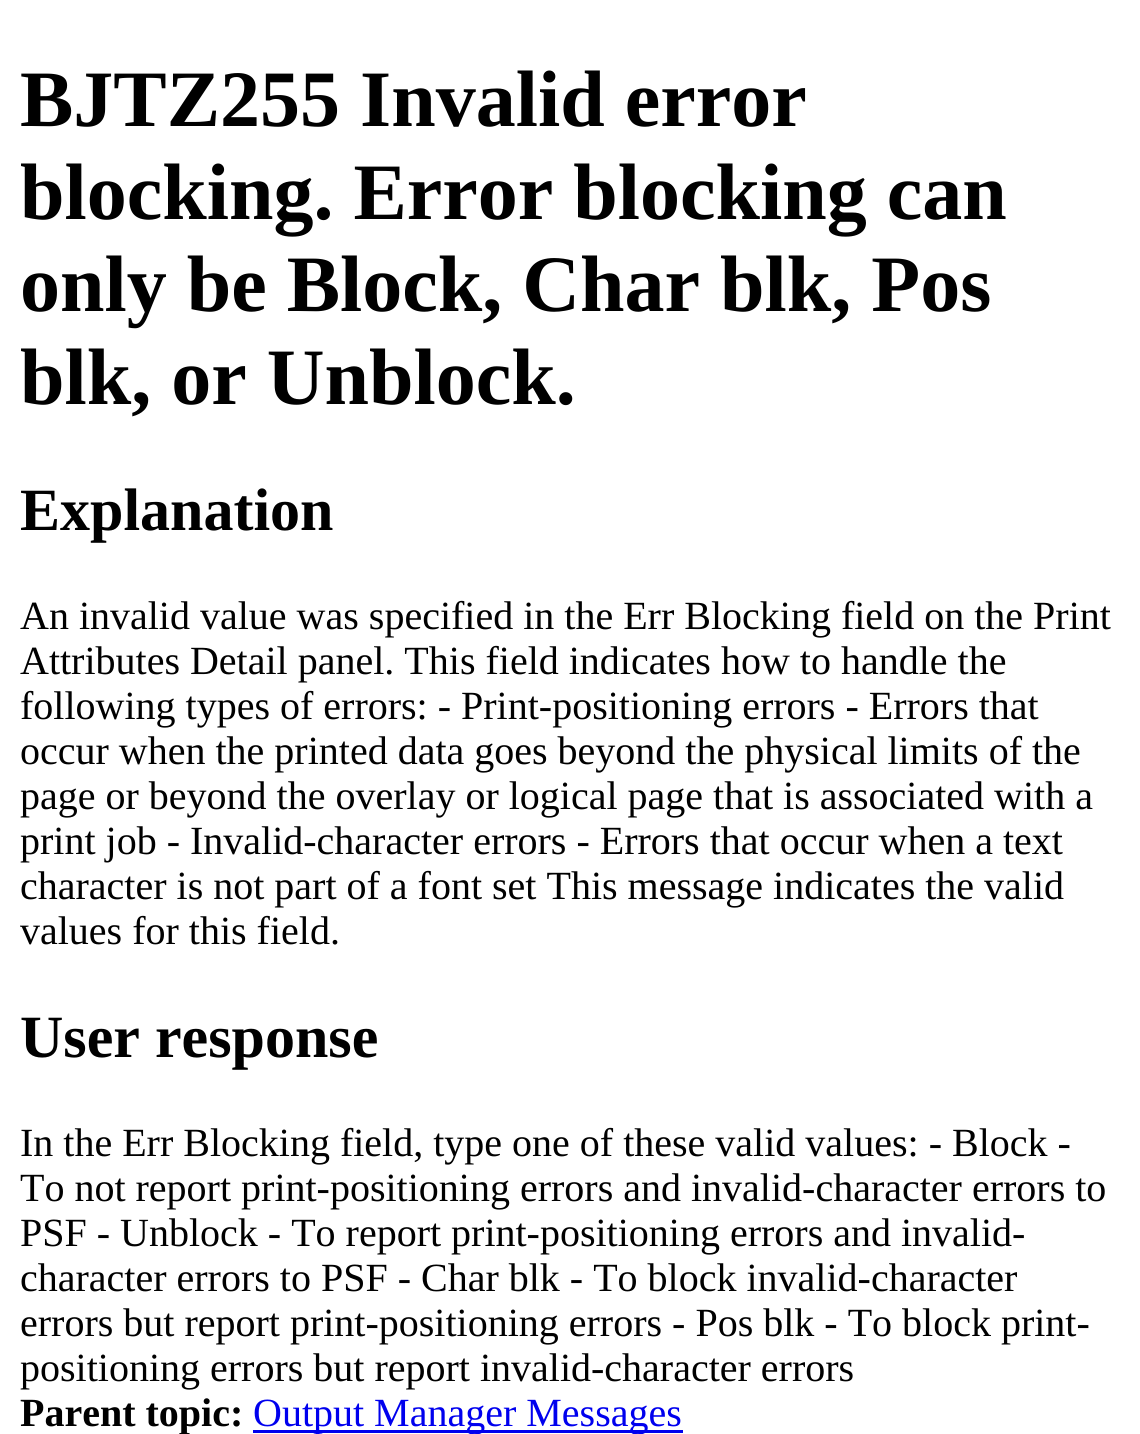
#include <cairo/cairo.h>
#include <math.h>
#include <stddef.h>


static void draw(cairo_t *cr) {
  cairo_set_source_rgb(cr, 1, 1, 1);
  cairo_paint(cr);
  cairo_set_source_rgb(cr, 0, 0, 238 / 255.0);
  cairo_rectangle(cr, 253, 1430, 430, 3);
  cairo_fill(cr);
  cairo_select_font_face(cr, "Liberation Serif", CAIRO_FONT_SLANT_NORMAL, CAIRO_FONT_WEIGHT_BOLD);
  cairo_set_font_size(cr, 80);
  cairo_set_source_rgb(cr, 0, 0, 0);
  cairo_move_to(cr, 20, 126);
  cairo_show_text(cr, "BJTZ255 Invalid error");
  cairo_move_to(cr, 20, 219);
  cairo_show_text(cr, "blocking. Error blocking can");
  cairo_move_to(cr, 20, 311);
  cairo_show_text(cr, "only be Block, Char blk, Pos");
  cairo_move_to(cr, 20, 404);
  cairo_show_text(cr, "blk, or Unblock.");
  cairo_set_font_size(cr, 60);
  cairo_move_to(cr, 20, 530);
  cairo_show_text(cr, "Explanation");
  cairo_select_font_face(cr, "Liberation Serif", CAIRO_FONT_SLANT_NORMAL, CAIRO_FONT_WEIGHT_NORMAL);
  cairo_set_font_size(cr, 40);
  cairo_move_to(cr, 20, 629);
  cairo_show_text(cr, "An invalid value was specified in the Err Blocking field on the Print");
  cairo_move_to(cr, 20, 674);
  cairo_show_text(cr, "Attributes Detail panel. This field indicates how to handle the");
  cairo_move_to(cr, 20, 719);
  cairo_show_text(cr, "following types of errors: - Print-positioning errors - Errors that");
  cairo_move_to(cr, 20, 764);
  cairo_show_text(cr, "occur when the printed data goes beyond the physical limits of the");
  cairo_move_to(cr, 20, 809);
  cairo_show_text(cr, "page or beyond the overlay or logical page that is associated with a");
  cairo_move_to(cr, 20, 854);
  cairo_show_text(cr, "print job - Invalid-character errors - Errors that occur when a text");
  cairo_move_to(cr, 20, 899);
  cairo_show_text(cr, "character is not part of a font set This message indicates the valid");
  cairo_move_to(cr, 20, 944);
  cairo_show_text(cr, "values for this field.");
  cairo_select_font_face(cr, "Liberation Serif", CAIRO_FONT_SLANT_NORMAL, CAIRO_FONT_WEIGHT_BOLD);
  cairo_set_font_size(cr, 60);
  cairo_move_to(cr, 20, 1057);
  cairo_show_text(cr, "User response");
  cairo_select_font_face(cr, "Liberation Serif", CAIRO_FONT_SLANT_NORMAL, CAIRO_FONT_WEIGHT_NORMAL);
  cairo_set_font_size(cr, 40);
  cairo_move_to(cr, 20, 1156);
  cairo_show_text(cr, "In the Err Blocking field, type one of these valid values: - Block -");
  cairo_move_to(cr, 20, 1201);
  cairo_show_text(cr, "To not report print-positioning errors and invalid-character errors to");
  cairo_move_to(cr, 20, 1246);
  cairo_show_text(cr, "PSF - Unblock - To report print-positioning errors and invalid-");
  cairo_move_to(cr, 20, 1291);
  cairo_show_text(cr, "character errors to PSF - Char blk - To block invalid-character");
  cairo_move_to(cr, 20, 1336);
  cairo_show_text(cr, "errors but report print-positioning errors - Pos blk - To block print-");
  cairo_move_to(cr, 20, 1381);
  cairo_show_text(cr, "positioning errors but report invalid-character errors");
  cairo_select_font_face(cr, "Liberation Serif", CAIRO_FONT_SLANT_NORMAL, CAIRO_FONT_WEIGHT_BOLD);
  cairo_move_to(cr, 20, 1426);
  cairo_show_text(cr, "Parent topic:");
  cairo_select_font_face(cr, "Liberation Serif", CAIRO_FONT_SLANT_NORMAL, CAIRO_FONT_WEIGHT_NORMAL);
  cairo_set_source_rgb(cr, 0, 0, 238 / 255.0);
  cairo_move_to(cr, 253, 1426);
  cairo_show_text(cr, "Output Manager Messages");
}

int main(void) {
  cairo_surface_t *surface = cairo_image_surface_create(CAIRO_FORMAT_RGB24, 1140, 1434);
  cairo_t *cr = cairo_create(surface);
  cairo_font_options_t *options = cairo_font_options_create();
  cairo_font_options_set_hint_metrics(options, CAIRO_HINT_METRICS_OFF);
  cairo_font_options_set_hint_style(options, CAIRO_HINT_STYLE_NONE);
  cairo_set_font_options(cr, options);
  cairo_set_miter_limit(cr, 4);
  draw(cr);
  cairo_surface_write_to_png(surface, "out.png");
  cairo_font_options_destroy(options);
  cairo_destroy(cr);
  cairo_surface_destroy(surface);
  return 0;
}
